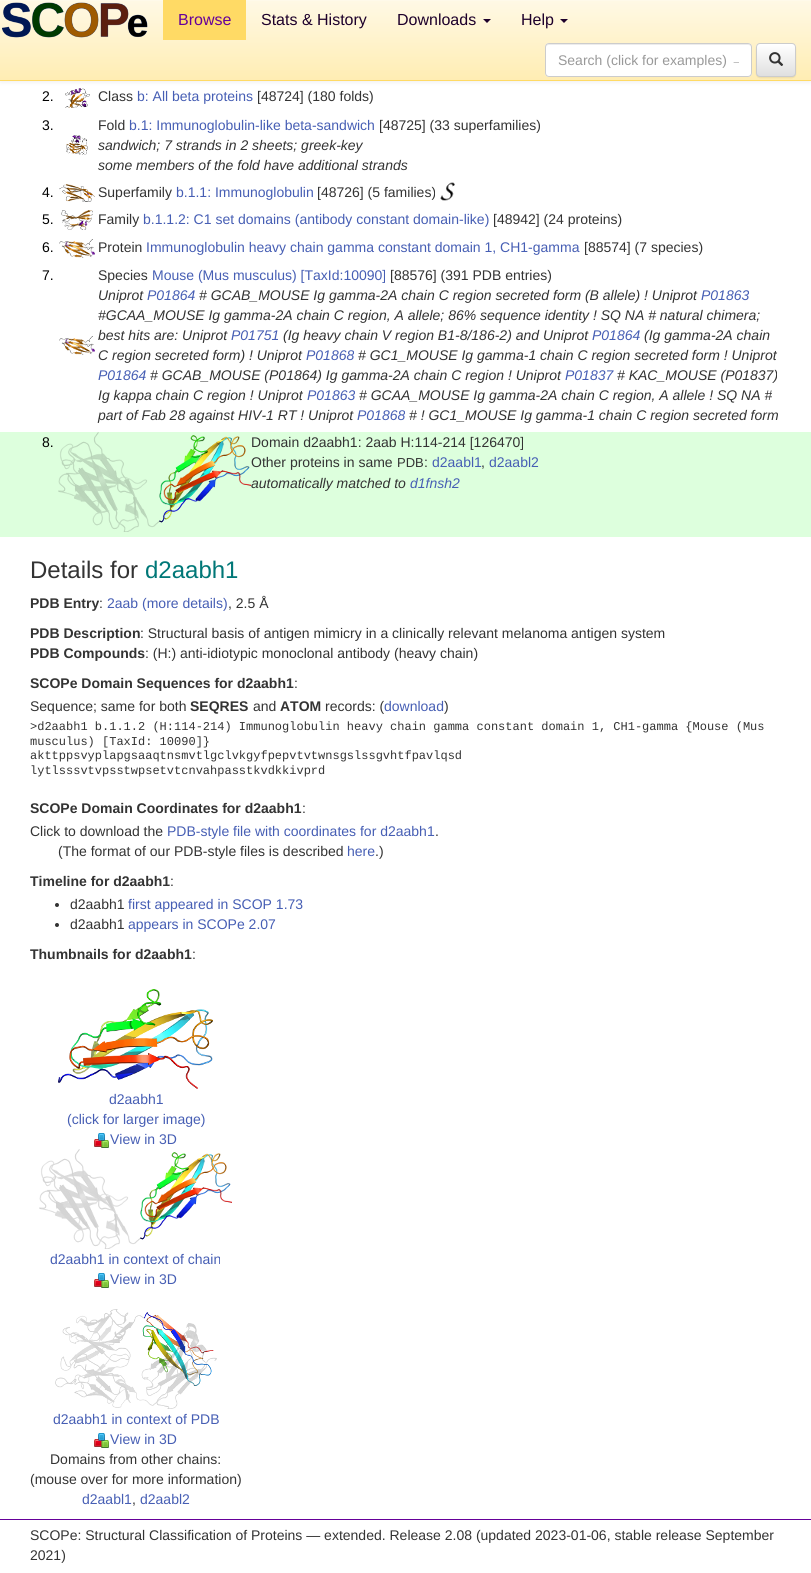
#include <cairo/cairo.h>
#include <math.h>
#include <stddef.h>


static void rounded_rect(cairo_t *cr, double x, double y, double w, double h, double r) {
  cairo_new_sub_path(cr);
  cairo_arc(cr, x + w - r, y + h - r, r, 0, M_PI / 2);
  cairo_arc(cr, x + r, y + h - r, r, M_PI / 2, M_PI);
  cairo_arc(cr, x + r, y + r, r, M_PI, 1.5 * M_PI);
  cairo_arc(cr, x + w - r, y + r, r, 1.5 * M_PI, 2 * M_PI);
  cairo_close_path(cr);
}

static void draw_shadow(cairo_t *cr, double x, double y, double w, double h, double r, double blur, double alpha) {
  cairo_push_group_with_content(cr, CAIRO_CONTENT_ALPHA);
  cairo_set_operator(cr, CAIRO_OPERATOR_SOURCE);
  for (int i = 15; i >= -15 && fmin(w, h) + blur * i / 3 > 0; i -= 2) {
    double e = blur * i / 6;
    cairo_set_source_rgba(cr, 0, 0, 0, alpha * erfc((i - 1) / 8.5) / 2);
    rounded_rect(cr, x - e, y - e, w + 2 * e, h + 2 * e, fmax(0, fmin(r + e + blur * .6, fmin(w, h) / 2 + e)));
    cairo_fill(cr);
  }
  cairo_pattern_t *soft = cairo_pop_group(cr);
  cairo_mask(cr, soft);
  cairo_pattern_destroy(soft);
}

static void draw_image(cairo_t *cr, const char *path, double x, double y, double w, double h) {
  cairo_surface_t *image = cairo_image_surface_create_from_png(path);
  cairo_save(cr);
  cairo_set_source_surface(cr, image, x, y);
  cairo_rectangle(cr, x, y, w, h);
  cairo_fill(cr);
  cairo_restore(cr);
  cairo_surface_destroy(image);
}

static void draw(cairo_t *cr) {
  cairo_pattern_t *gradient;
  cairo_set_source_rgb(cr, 1, 1, 1);
  cairo_paint(cr);
  draw_image(cr, "images/3.png", 65, 88, 25, 20);
  cairo_set_source_rgb(cr, 0, 0, 0);
  draw_shadow(cr, 0, 1, 811, 81, 0, 2.5, 0.07);
  gradient = cairo_pattern_create_linear(406, 0, 406, 80);
  cairo_pattern_add_color_stop_rgba(gradient, 0, 1, 249 / 255.0, 230 / 255.0, 1);
  cairo_pattern_add_color_stop_rgba(gradient, 1, 1, 237 / 255.0, 179 / 255.0, 1);
  cairo_set_source(cr, gradient);
  cairo_pattern_destroy(gradient);
  cairo_rectangle(cr, 0, 1, 811, 79);
  cairo_fill(cr);
  cairo_set_source_rgb(cr, 1, 250 / 255.0, 234 / 255.0);
  cairo_rectangle(cr, 0, 0, 811, 1);
  cairo_fill(cr);
  cairo_set_source_rgb(cr, 1, 218 / 255.0, 101 / 255.0);
  cairo_rectangle(cr, 0, 80, 811, 1);
  cairo_fill(cr);
  draw_image(cr, "images/1.png", 2, 2, 146, 36);
  cairo_rectangle(cr, 163, 0, 83, 40);
  cairo_fill(cr);
  cairo_set_source_rgb(cr, 29 / 255.0, 0, 43 / 255.0);
  cairo_new_path(cr);
  cairo_move_to(cr, 483, 19);
  cairo_line_to(cr, 491, 19);
  cairo_line_to(cr, 487, 23);
  cairo_close_path(cr);
  cairo_fill(cr);
  cairo_new_path(cr);
  cairo_move_to(cr, 560, 19);
  cairo_line_to(cr, 568, 19);
  cairo_line_to(cr, 564, 23);
  cairo_close_path(cr);
  cairo_fill(cr);
  cairo_set_source_rgb(cr, 1, 1, 1);
  rounded_rect(cr, 545, 43, 207, 34, 4);
  cairo_fill(cr);
  cairo_set_source_rgb(cr, 236 / 255.0, 236 / 255.0, 236 / 255.0);
  cairo_new_path(cr);
  cairo_move_to(cr, 549, 45);
  cairo_line_to(cr, 748, 45);
  cairo_curve_to(cr, 750, 45, 751, 46, 751, 48);
  cairo_curve_to(cr, 751, 46, 750, 44, 748, 44);
  cairo_line_to(cr, 549, 44);
  cairo_curve_to(cr, 547, 44, 546, 46, 546, 48);
  cairo_curve_to(cr, 546, 46, 547, 45, 549, 45);
  cairo_close_path(cr);
  cairo_fill(cr);
  rounded_rect(cr, 545.5, 43.5, 206, 33, 3.5);
  cairo_set_source_rgb(cr, 204 / 255.0, 204 / 255.0, 204 / 255.0);
  cairo_set_line_width(cr, 1);
  cairo_stroke(cr);
  cairo_set_source_rgb(cr, 0, 0, 0);
  draw_shadow(cr, 756, 44, 40, 34, 4, 0.5, 0.07);
  cairo_save(cr);
  rounded_rect(cr, 756, 43, 40, 34, 4);
  cairo_clip(cr);
  gradient = cairo_pattern_create_linear(776, 44, 776, 76);
  cairo_pattern_add_color_stop_rgba(gradient, 0, 1, 1, 1, 1);
  cairo_pattern_add_color_stop_rgba(gradient, 1, 224 / 255.0, 224 / 255.0, 224 / 255.0, 1);
  cairo_set_source(cr, gradient);
  cairo_pattern_destroy(gradient);
  cairo_rectangle(cr, 756, 44, 40, 32);
  cairo_fill(cr);
  cairo_restore(cr);
  rounded_rect(cr, 756.5, 43.5, 39, 33, 3.5);
  cairo_set_source_rgb(cr, 204 / 255.0, 204 / 255.0, 204 / 255.0);
  cairo_stroke(cr);
  draw_image(cr, "images/2.png", 769, 52, 15, 14);
  draw_image(cr, "images/4.png", 66, 135, 22, 20);
  draw_image(cr, "images/5.png", 59, 184, 36, 18);
  draw_image(cr, "images/6.png", 440, 182, 15, 19);
  draw_image(cr, "images/7.png", 61, 210, 32, 20);
  draw_image(cr, "images/8.png", 59, 239, 36, 19);
  draw_image(cr, "images/8.png", 59, 336, 36, 19);
  cairo_set_source_rgb(cr, 221 / 255.0, 1, 221 / 255.0);
  cairo_rectangle(cr, 0, 432, 811, 105);
  cairo_fill(cr);
  draw_image(cr, "images/9.png", 58, 432, 193, 100);
  cairo_set_source_rgb(cr, 51 / 255.0, 51 / 255.0, 51 / 255.0);
  cairo_arc(cr, 57, 905, 2, 0, 2 * M_PI);
  cairo_fill(cr);
  cairo_arc(cr, 57, 925, 2, 0, 2 * M_PI);
  cairo_fill(cr);
  draw_image(cr, "images/10.png", 58, 989, 155, 100);
  draw_image(cr, "images/11.png", 94, 1133, 15, 15);
  draw_image(cr, "images/12.png", 39, 1149, 193, 100);
  draw_image(cr, "images/11.png", 94, 1273, 15, 15);
  draw_image(cr, "images/13.png", 55, 1309, 162, 100);
  draw_image(cr, "images/11.png", 94, 1433, 15, 15);
  cairo_set_source_rgb(cr, 102 / 255.0, 0, 153 / 255.0);
  cairo_rectangle(cr, 0, 1519, 811, 1);
  cairo_fill(cr);
  cairo_select_font_face(cr, "Liberation Sans", CAIRO_FONT_SLANT_NORMAL, CAIRO_FONT_WEIGHT_NORMAL);
  cairo_set_font_size(cr, 16);
  cairo_move_to(cr, 178, 25);
  cairo_show_text(cr, "Browse");
  cairo_set_source_rgb(cr, 29 / 255.0, 0, 43 / 255.0);
  cairo_move_to(cr, 261, 25);
  cairo_show_text(cr, "Stats & History");
  cairo_move_to(cr, 397, 25);
  cairo_show_text(cr, "Downloads");
  cairo_move_to(cr, 521, 25);
  cairo_show_text(cr, "Help");
  cairo_save(cr);
  cairo_rectangle(cr, 558, 52, 181, 16);
  cairo_clip(cr);
  cairo_set_font_size(cr, 14);
  cairo_set_source_rgb(cr, 153 / 255.0, 153 / 255.0, 153 / 255.0);
  cairo_move_to(cr, 558, 65);
  cairo_show_text(cr, "Search (click for examples) →");
  cairo_restore(cr);
  cairo_set_font_size(cr, 14);
  cairo_set_source_rgb(cr, 0, 0, 0);
  cairo_move_to(cr, 42, 101);
  cairo_show_text(cr, "2.");
  cairo_set_source_rgb(cr, 51 / 255.0, 51 / 255.0, 51 / 255.0);
  cairo_move_to(cr, 98, 101);
  cairo_show_text(cr, "Class");
  cairo_set_source_rgb(cr, 70 / 255.0, 94 / 255.0, 180 / 255.0);
  cairo_move_to(cr, 137, 101);
  cairo_show_text(cr, "b: All beta proteins");
  cairo_set_source_rgb(cr, 51 / 255.0, 51 / 255.0, 51 / 255.0);
  cairo_move_to(cr, 257, 101);
  cairo_show_text(cr, "[48724] (180 folds)");
  cairo_set_source_rgb(cr, 0, 0, 0);
  cairo_move_to(cr, 42, 130);
  cairo_show_text(cr, "3.");
  cairo_set_source_rgb(cr, 51 / 255.0, 51 / 255.0, 51 / 255.0);
  cairo_move_to(cr, 98, 130);
  cairo_show_text(cr, "Fold");
  cairo_set_source_rgb(cr, 70 / 255.0, 94 / 255.0, 180 / 255.0);
  cairo_move_to(cr, 129, 130);
  cairo_show_text(cr, "b.1: Immunoglobulin-like beta-sandwich");
  cairo_set_source_rgb(cr, 51 / 255.0, 51 / 255.0, 51 / 255.0);
  cairo_move_to(cr, 379, 130);
  cairo_show_text(cr, "[48725] (33 superfamilies)");
  cairo_select_font_face(cr, "Liberation Sans", CAIRO_FONT_SLANT_ITALIC, CAIRO_FONT_WEIGHT_NORMAL);
  cairo_move_to(cr, 98, 150);
  cairo_show_text(cr, "sandwich; 7 strands in 2 sheets; greek-key");
  cairo_move_to(cr, 98, 170);
  cairo_show_text(cr, "some members of the fold have additional strands");
  cairo_select_font_face(cr, "Liberation Sans", CAIRO_FONT_SLANT_NORMAL, CAIRO_FONT_WEIGHT_NORMAL);
  cairo_set_source_rgb(cr, 0, 0, 0);
  cairo_move_to(cr, 42, 197);
  cairo_show_text(cr, "4.");
  cairo_set_source_rgb(cr, 51 / 255.0, 51 / 255.0, 51 / 255.0);
  cairo_move_to(cr, 98, 197);
  cairo_show_text(cr, "Superfamily");
  cairo_set_source_rgb(cr, 70 / 255.0, 94 / 255.0, 180 / 255.0);
  cairo_move_to(cr, 176, 197);
  cairo_show_text(cr, "b.1.1: Immunoglobulin");
  cairo_set_source_rgb(cr, 51 / 255.0, 51 / 255.0, 51 / 255.0);
  cairo_move_to(cr, 317, 197);
  cairo_show_text(cr, "[48726] (5 families)");
  cairo_set_source_rgb(cr, 0, 0, 0);
  cairo_move_to(cr, 42, 224);
  cairo_show_text(cr, "5.");
  cairo_set_source_rgb(cr, 51 / 255.0, 51 / 255.0, 51 / 255.0);
  cairo_move_to(cr, 98, 224);
  cairo_show_text(cr, "Family");
  cairo_set_source_rgb(cr, 70 / 255.0, 94 / 255.0, 180 / 255.0);
  cairo_move_to(cr, 143, 224);
  cairo_show_text(cr, "b.1.1.2: C1 set domains (antibody constant domain-like)");
  cairo_set_source_rgb(cr, 51 / 255.0, 51 / 255.0, 51 / 255.0);
  cairo_move_to(cr, 493, 224);
  cairo_show_text(cr, "[48942] (24 proteins)");
  cairo_set_source_rgb(cr, 0, 0, 0);
  cairo_move_to(cr, 42, 252);
  cairo_show_text(cr, "6.");
  cairo_set_source_rgb(cr, 51 / 255.0, 51 / 255.0, 51 / 255.0);
  cairo_move_to(cr, 98, 252);
  cairo_show_text(cr, "Protein");
  cairo_set_source_rgb(cr, 70 / 255.0, 94 / 255.0, 180 / 255.0);
  cairo_move_to(cr, 146, 252);
  cairo_show_text(cr, "Immunoglobulin heavy chain gamma constant domain 1, CH1-gamma");
  cairo_set_source_rgb(cr, 51 / 255.0, 51 / 255.0, 51 / 255.0);
  cairo_move_to(cr, 584, 252);
  cairo_show_text(cr, "[88574] (7 species)");
  cairo_set_source_rgb(cr, 0, 0, 0);
  cairo_move_to(cr, 42, 280);
  cairo_show_text(cr, "7.");
  cairo_set_source_rgb(cr, 51 / 255.0, 51 / 255.0, 51 / 255.0);
  cairo_move_to(cr, 98, 280);
  cairo_show_text(cr, "Species");
  cairo_set_source_rgb(cr, 70 / 255.0, 94 / 255.0, 180 / 255.0);
  cairo_move_to(cr, 152, 280);
  cairo_show_text(cr, "Mouse (Mus musculus) [TaxId:10090]");
  cairo_set_source_rgb(cr, 51 / 255.0, 51 / 255.0, 51 / 255.0);
  cairo_move_to(cr, 390, 280);
  cairo_show_text(cr, "[88576] (391 PDB entries)");
  cairo_select_font_face(cr, "Liberation Sans", CAIRO_FONT_SLANT_ITALIC, CAIRO_FONT_WEIGHT_NORMAL);
  cairo_move_to(cr, 98, 300);
  cairo_show_text(cr, "Uniprot");
  cairo_set_source_rgb(cr, 70 / 255.0, 94 / 255.0, 180 / 255.0);
  cairo_move_to(cr, 147, 300);
  cairo_show_text(cr, "P01864");
  cairo_set_source_rgb(cr, 51 / 255.0, 51 / 255.0, 51 / 255.0);
  cairo_move_to(cr, 199, 300);
  cairo_show_text(cr, "# GCAB_MOUSE Ig gamma-2A chain C region secreted form (B allele) ! Uniprot");
  cairo_set_source_rgb(cr, 70 / 255.0, 94 / 255.0, 180 / 255.0);
  cairo_move_to(cr, 701, 300);
  cairo_show_text(cr, "P01863");
  cairo_set_source_rgb(cr, 51 / 255.0, 51 / 255.0, 51 / 255.0);
  cairo_move_to(cr, 98, 320);
  cairo_show_text(cr, "#GCAA_MOUSE Ig gamma-2A chain C region, A allele; 86% sequence identity ! SQ NA # natural chimera;");
  cairo_move_to(cr, 98, 340);
  cairo_show_text(cr, "best hits are: Uniprot");
  cairo_set_source_rgb(cr, 70 / 255.0, 94 / 255.0, 180 / 255.0);
  cairo_move_to(cr, 231, 340);
  cairo_show_text(cr, "P01751");
  cairo_set_source_rgb(cr, 51 / 255.0, 51 / 255.0, 51 / 255.0);
  cairo_move_to(cr, 283, 340);
  cairo_show_text(cr, "(Ig heavy chain V region B1-8/186-2) and Uniprot");
  cairo_set_source_rgb(cr, 70 / 255.0, 94 / 255.0, 180 / 255.0);
  cairo_move_to(cr, 592, 340);
  cairo_show_text(cr, "P01864");
  cairo_set_source_rgb(cr, 51 / 255.0, 51 / 255.0, 51 / 255.0);
  cairo_move_to(cr, 644, 340);
  cairo_show_text(cr, "(Ig gamma-2A chain");
  cairo_move_to(cr, 98, 360);
  cairo_show_text(cr, "C region secreted form) ! Uniprot");
  cairo_set_source_rgb(cr, 70 / 255.0, 94 / 255.0, 180 / 255.0);
  cairo_move_to(cr, 306, 360);
  cairo_show_text(cr, "P01868");
  cairo_set_source_rgb(cr, 51 / 255.0, 51 / 255.0, 51 / 255.0);
  cairo_move_to(cr, 358, 360);
  cairo_show_text(cr, "# GC1_MOUSE Ig gamma-1 chain C region secreted form ! Uniprot");
  cairo_set_source_rgb(cr, 70 / 255.0, 94 / 255.0, 180 / 255.0);
  cairo_move_to(cr, 98, 380);
  cairo_show_text(cr, "P01864");
  cairo_set_source_rgb(cr, 51 / 255.0, 51 / 255.0, 51 / 255.0);
  cairo_move_to(cr, 150, 380);
  cairo_show_text(cr, "# GCAB_MOUSE (P01864) Ig gamma-2A chain C region ! Uniprot");
  cairo_set_source_rgb(cr, 70 / 255.0, 94 / 255.0, 180 / 255.0);
  cairo_move_to(cr, 565, 380);
  cairo_show_text(cr, "P01837");
  cairo_set_source_rgb(cr, 51 / 255.0, 51 / 255.0, 51 / 255.0);
  cairo_move_to(cr, 617, 380);
  cairo_show_text(cr, "# KAC_MOUSE (P01837)");
  cairo_move_to(cr, 98, 400);
  cairo_show_text(cr, "Ig kappa chain C region ! Uniprot");
  cairo_set_source_rgb(cr, 70 / 255.0, 94 / 255.0, 180 / 255.0);
  cairo_move_to(cr, 307, 400);
  cairo_show_text(cr, "P01863");
  cairo_set_source_rgb(cr, 51 / 255.0, 51 / 255.0, 51 / 255.0);
  cairo_move_to(cr, 359, 400);
  cairo_show_text(cr, "# GCAA_MOUSE Ig gamma-2A chain C region, A allele ! SQ NA #");
  cairo_move_to(cr, 98, 420);
  cairo_show_text(cr, "part of Fab 28 against HIV-1 RT ! Uniprot");
  cairo_set_source_rgb(cr, 70 / 255.0, 94 / 255.0, 180 / 255.0);
  cairo_move_to(cr, 357, 420);
  cairo_show_text(cr, "P01868");
  cairo_set_source_rgb(cr, 51 / 255.0, 51 / 255.0, 51 / 255.0);
  cairo_move_to(cr, 409, 420);
  cairo_show_text(cr, "# ! GC1_MOUSE Ig gamma-1 chain C region secreted form");
  cairo_select_font_face(cr, "Liberation Sans", CAIRO_FONT_SLANT_NORMAL, CAIRO_FONT_WEIGHT_NORMAL);
  cairo_set_source_rgb(cr, 0, 0, 0);
  cairo_move_to(cr, 42, 447);
  cairo_show_text(cr, "8.");
  cairo_set_source_rgb(cr, 51 / 255.0, 51 / 255.0, 51 / 255.0);
  cairo_move_to(cr, 251, 447);
  cairo_show_text(cr, "Domain d2aabh1: 2aab H:114-214 [126470]");
  cairo_move_to(cr, 251, 467);
  cairo_show_text(cr, "Other proteins in same");
  cairo_set_font_size(cr, 13);
  cairo_move_to(cr, 397, 467);
  cairo_show_text(cr, "PDB");
  cairo_set_font_size(cr, 14);
  cairo_move_to(cr, 424, 467);
  cairo_show_text(cr, ":");
  cairo_set_source_rgb(cr, 70 / 255.0, 94 / 255.0, 180 / 255.0);
  cairo_move_to(cr, 432, 467);
  cairo_show_text(cr, "d2aabl1");
  cairo_set_source_rgb(cr, 51 / 255.0, 51 / 255.0, 51 / 255.0);
  cairo_move_to(cr, 481, 467);
  cairo_show_text(cr, ",");
  cairo_set_source_rgb(cr, 70 / 255.0, 94 / 255.0, 180 / 255.0);
  cairo_move_to(cr, 489, 467);
  cairo_show_text(cr, "d2aabl2");
  cairo_select_font_face(cr, "Liberation Sans", CAIRO_FONT_SLANT_ITALIC, CAIRO_FONT_WEIGHT_NORMAL);
  cairo_set_source_rgb(cr, 51 / 255.0, 51 / 255.0, 51 / 255.0);
  cairo_move_to(cr, 251, 488);
  cairo_show_text(cr, "automatically matched to");
  cairo_set_source_rgb(cr, 70 / 255.0, 94 / 255.0, 180 / 255.0);
  cairo_move_to(cr, 410, 488);
  cairo_show_text(cr, "d1fnsh2");
  cairo_select_font_face(cr, "Liberation Sans", CAIRO_FONT_SLANT_NORMAL, CAIRO_FONT_WEIGHT_NORMAL);
  cairo_set_font_size(cr, 24);
  cairo_set_source_rgb(cr, 51 / 255.0, 51 / 255.0, 51 / 255.0);
  cairo_move_to(cr, 30, 578);
  cairo_show_text(cr, "Details for");
  cairo_set_source_rgb(cr, 0, 119 / 255.0, 119 / 255.0);
  cairo_move_to(cr, 145, 578);
  cairo_show_text(cr, "d2aabh1");
  cairo_select_font_face(cr, "Liberation Sans", CAIRO_FONT_SLANT_NORMAL, CAIRO_FONT_WEIGHT_BOLD);
  cairo_set_font_size(cr, 14);
  cairo_set_source_rgb(cr, 51 / 255.0, 51 / 255.0, 51 / 255.0);
  cairo_move_to(cr, 30, 608);
  cairo_show_text(cr, "PDB Entry");
  cairo_select_font_face(cr, "Liberation Sans", CAIRO_FONT_SLANT_NORMAL, CAIRO_FONT_WEIGHT_NORMAL);
  cairo_move_to(cr, 99, 608);
  cairo_show_text(cr, ":");
  cairo_set_source_rgb(cr, 70 / 255.0, 94 / 255.0, 180 / 255.0);
  cairo_move_to(cr, 107, 608);
  cairo_show_text(cr, "2aab (more details)");
  cairo_set_source_rgb(cr, 51 / 255.0, 51 / 255.0, 51 / 255.0);
  cairo_move_to(cr, 228, 608);
  cairo_show_text(cr, ", 2.5 Å");
  cairo_select_font_face(cr, "Liberation Sans", CAIRO_FONT_SLANT_NORMAL, CAIRO_FONT_WEIGHT_BOLD);
  cairo_move_to(cr, 30, 638);
  cairo_show_text(cr, "PDB Description");
  cairo_select_font_face(cr, "Liberation Sans", CAIRO_FONT_SLANT_NORMAL, CAIRO_FONT_WEIGHT_NORMAL);
  cairo_move_to(cr, 140, 638);
  cairo_show_text(cr, ": Structural basis of antigen mimicry in a clinically relevant melanoma antigen system");
  cairo_select_font_face(cr, "Liberation Sans", CAIRO_FONT_SLANT_NORMAL, CAIRO_FONT_WEIGHT_BOLD);
  cairo_move_to(cr, 30, 658);
  cairo_show_text(cr, "PDB Compounds");
  cairo_select_font_face(cr, "Liberation Sans", CAIRO_FONT_SLANT_NORMAL, CAIRO_FONT_WEIGHT_NORMAL);
  cairo_move_to(cr, 145, 658);
  cairo_show_text(cr, ": (H:) anti-idiotypic monoclonal antibody (heavy chain)");
  cairo_select_font_face(cr, "Liberation Sans", CAIRO_FONT_SLANT_NORMAL, CAIRO_FONT_WEIGHT_BOLD);
  cairo_move_to(cr, 30, 688);
  cairo_show_text(cr, "SCOPe Domain Sequences for d2aabh1");
  cairo_select_font_face(cr, "Liberation Sans", CAIRO_FONT_SLANT_NORMAL, CAIRO_FONT_WEIGHT_NORMAL);
  cairo_move_to(cr, 294, 688);
  cairo_show_text(cr, ":");
  cairo_move_to(cr, 30, 711);
  cairo_show_text(cr, "Sequence; same for both");
  cairo_select_font_face(cr, "Liberation Sans", CAIRO_FONT_SLANT_NORMAL, CAIRO_FONT_WEIGHT_BOLD);
  cairo_move_to(cr, 190, 711);
  cairo_show_text(cr, "SEQRES");
  cairo_select_font_face(cr, "Liberation Sans", CAIRO_FONT_SLANT_NORMAL, CAIRO_FONT_WEIGHT_NORMAL);
  cairo_move_to(cr, 253, 711);
  cairo_show_text(cr, "and");
  cairo_select_font_face(cr, "Liberation Sans", CAIRO_FONT_SLANT_NORMAL, CAIRO_FONT_WEIGHT_BOLD);
  cairo_move_to(cr, 280, 711);
  cairo_show_text(cr, "ATOM");
  cairo_select_font_face(cr, "Liberation Sans", CAIRO_FONT_SLANT_NORMAL, CAIRO_FONT_WEIGHT_NORMAL);
  cairo_move_to(cr, 325, 711);
  cairo_show_text(cr, "records: (");
  cairo_set_source_rgb(cr, 70 / 255.0, 94 / 255.0, 180 / 255.0);
  cairo_move_to(cr, 384, 711);
  cairo_show_text(cr, "download");
  cairo_set_source_rgb(cr, 51 / 255.0, 51 / 255.0, 51 / 255.0);
  cairo_move_to(cr, 444, 711);
  cairo_show_text(cr, ")");
  cairo_select_font_face(cr, "Liberation Mono", CAIRO_FONT_SLANT_NORMAL, CAIRO_FONT_WEIGHT_NORMAL);
  cairo_set_font_size(cr, 12);
  cairo_move_to(cr, 30, 730);
  cairo_show_text(cr, ">d2aabh1 b.1.1.2 (H:114-214) Immunoglobulin heavy chain gamma constant domain 1, CH1-gamma {Mouse (Mus");
  cairo_move_to(cr, 30, 745);
  cairo_show_text(cr, "musculus) [TaxId: 10090]}");
  cairo_move_to(cr, 30, 759);
  cairo_show_text(cr, "akttppsvyplapgsaaqtnsmvtlgclvkgyfpepvtvtwnsgslssgvhtfpavlqsd");
  cairo_move_to(cr, 30, 774);
  cairo_show_text(cr, "lytlsssvtvpsstwpsetvtcnvahpasstkvdkkivprd");
  cairo_select_font_face(cr, "Liberation Sans", CAIRO_FONT_SLANT_NORMAL, CAIRO_FONT_WEIGHT_BOLD);
  cairo_set_font_size(cr, 14);
  cairo_move_to(cr, 30, 813);
  cairo_show_text(cr, "SCOPe Domain Coordinates for d2aabh1");
  cairo_select_font_face(cr, "Liberation Sans", CAIRO_FONT_SLANT_NORMAL, CAIRO_FONT_WEIGHT_NORMAL);
  cairo_move_to(cr, 302, 813);
  cairo_show_text(cr, ":");
  cairo_move_to(cr, 30, 836);
  cairo_show_text(cr, "Click to download the");
  cairo_set_source_rgb(cr, 70 / 255.0, 94 / 255.0, 180 / 255.0);
  cairo_move_to(cr, 167, 836);
  cairo_show_text(cr, "PDB-style file with coordinates for d2aabh1");
  cairo_set_source_rgb(cr, 51 / 255.0, 51 / 255.0, 51 / 255.0);
  cairo_move_to(cr, 435, 836);
  cairo_show_text(cr, ".");
  cairo_move_to(cr, 58, 856);
  cairo_show_text(cr, "(The format of our PDB-style files is described");
  cairo_set_source_rgb(cr, 70 / 255.0, 94 / 255.0, 180 / 255.0);
  cairo_move_to(cr, 347, 856);
  cairo_show_text(cr, "here");
  cairo_set_source_rgb(cr, 51 / 255.0, 51 / 255.0, 51 / 255.0);
  cairo_move_to(cr, 375, 856);
  cairo_show_text(cr, ".)");
  cairo_select_font_face(cr, "Liberation Sans", CAIRO_FONT_SLANT_NORMAL, CAIRO_FONT_WEIGHT_BOLD);
  cairo_move_to(cr, 30, 886);
  cairo_show_text(cr, "Timeline for d2aabh1");
  cairo_select_font_face(cr, "Liberation Sans", CAIRO_FONT_SLANT_NORMAL, CAIRO_FONT_WEIGHT_NORMAL);
  cairo_move_to(cr, 170, 886);
  cairo_show_text(cr, ":");
  cairo_move_to(cr, 70, 909);
  cairo_show_text(cr, "d2aabh1");
  cairo_set_source_rgb(cr, 70 / 255.0, 94 / 255.0, 180 / 255.0);
  cairo_move_to(cr, 128, 909);
  cairo_show_text(cr, "first appeared in SCOP 1.73");
  cairo_set_source_rgb(cr, 51 / 255.0, 51 / 255.0, 51 / 255.0);
  cairo_move_to(cr, 70, 929);
  cairo_show_text(cr, "d2aabh1");
  cairo_set_source_rgb(cr, 70 / 255.0, 94 / 255.0, 180 / 255.0);
  cairo_move_to(cr, 128, 929);
  cairo_show_text(cr, "appears in SCOPe 2.07");
  cairo_select_font_face(cr, "Liberation Sans", CAIRO_FONT_SLANT_NORMAL, CAIRO_FONT_WEIGHT_BOLD);
  cairo_set_source_rgb(cr, 51 / 255.0, 51 / 255.0, 51 / 255.0);
  cairo_move_to(cr, 30, 959);
  cairo_show_text(cr, "Thumbnails for d2aabh1");
  cairo_select_font_face(cr, "Liberation Sans", CAIRO_FONT_SLANT_NORMAL, CAIRO_FONT_WEIGHT_NORMAL);
  cairo_move_to(cr, 192, 959);
  cairo_show_text(cr, ":");
  cairo_set_source_rgb(cr, 70 / 255.0, 94 / 255.0, 180 / 255.0);
  cairo_move_to(cr, 109, 1104);
  cairo_show_text(cr, "d2aabh1");
  cairo_move_to(cr, 67, 1124);
  cairo_show_text(cr, "(click for larger image)");
  cairo_move_to(cr, 110, 1144);
  cairo_show_text(cr, "View in 3D");
  cairo_move_to(cr, 50, 1264);
  cairo_show_text(cr, "d2aabh1 in context of chain");
  cairo_move_to(cr, 110, 1284);
  cairo_show_text(cr, "View in 3D");
  cairo_move_to(cr, 53, 1424);
  cairo_show_text(cr, "d2aabh1 in context of PDB");
  cairo_move_to(cr, 110, 1444);
  cairo_show_text(cr, "View in 3D");
  cairo_set_source_rgb(cr, 51 / 255.0, 51 / 255.0, 51 / 255.0);
  cairo_move_to(cr, 50, 1464);
  cairo_show_text(cr, "Domains from other chains:");
  cairo_move_to(cr, 30, 1484);
  cairo_show_text(cr, "(mouse over for more information)");
  cairo_set_source_rgb(cr, 70 / 255.0, 94 / 255.0, 180 / 255.0);
  cairo_move_to(cr, 82, 1504);
  cairo_show_text(cr, "d2aabl1");
  cairo_set_source_rgb(cr, 51 / 255.0, 51 / 255.0, 51 / 255.0);
  cairo_move_to(cr, 132, 1504);
  cairo_show_text(cr, ",");
  cairo_set_source_rgb(cr, 70 / 255.0, 94 / 255.0, 180 / 255.0);
  cairo_move_to(cr, 140, 1504);
  cairo_show_text(cr, "d2aabl2");
  cairo_set_source_rgb(cr, 51 / 255.0, 51 / 255.0, 51 / 255.0);
  cairo_move_to(cr, 30, 1540);
  cairo_show_text(cr, "SCOPe: Structural Classification of Proteins — extended. Release 2.08 (updated 2023-01-06, stable release September");
  cairo_move_to(cr, 30, 1560);
  cairo_show_text(cr, "2021)");
}

int main(void) {
  cairo_surface_t *surface = cairo_image_surface_create(CAIRO_FORMAT_RGB24, 811, 1573);
  cairo_t *cr = cairo_create(surface);
  cairo_font_options_t *options = cairo_font_options_create();
  cairo_font_options_set_hint_metrics(options, CAIRO_HINT_METRICS_OFF);
  cairo_font_options_set_hint_style(options, CAIRO_HINT_STYLE_NONE);
  cairo_set_font_options(cr, options);
  cairo_set_miter_limit(cr, 4);
  draw(cr);
  cairo_surface_write_to_png(surface, "out.png");
  cairo_font_options_destroy(options);
  cairo_destroy(cr);
  cairo_surface_destroy(surface);
  return 0;
}
